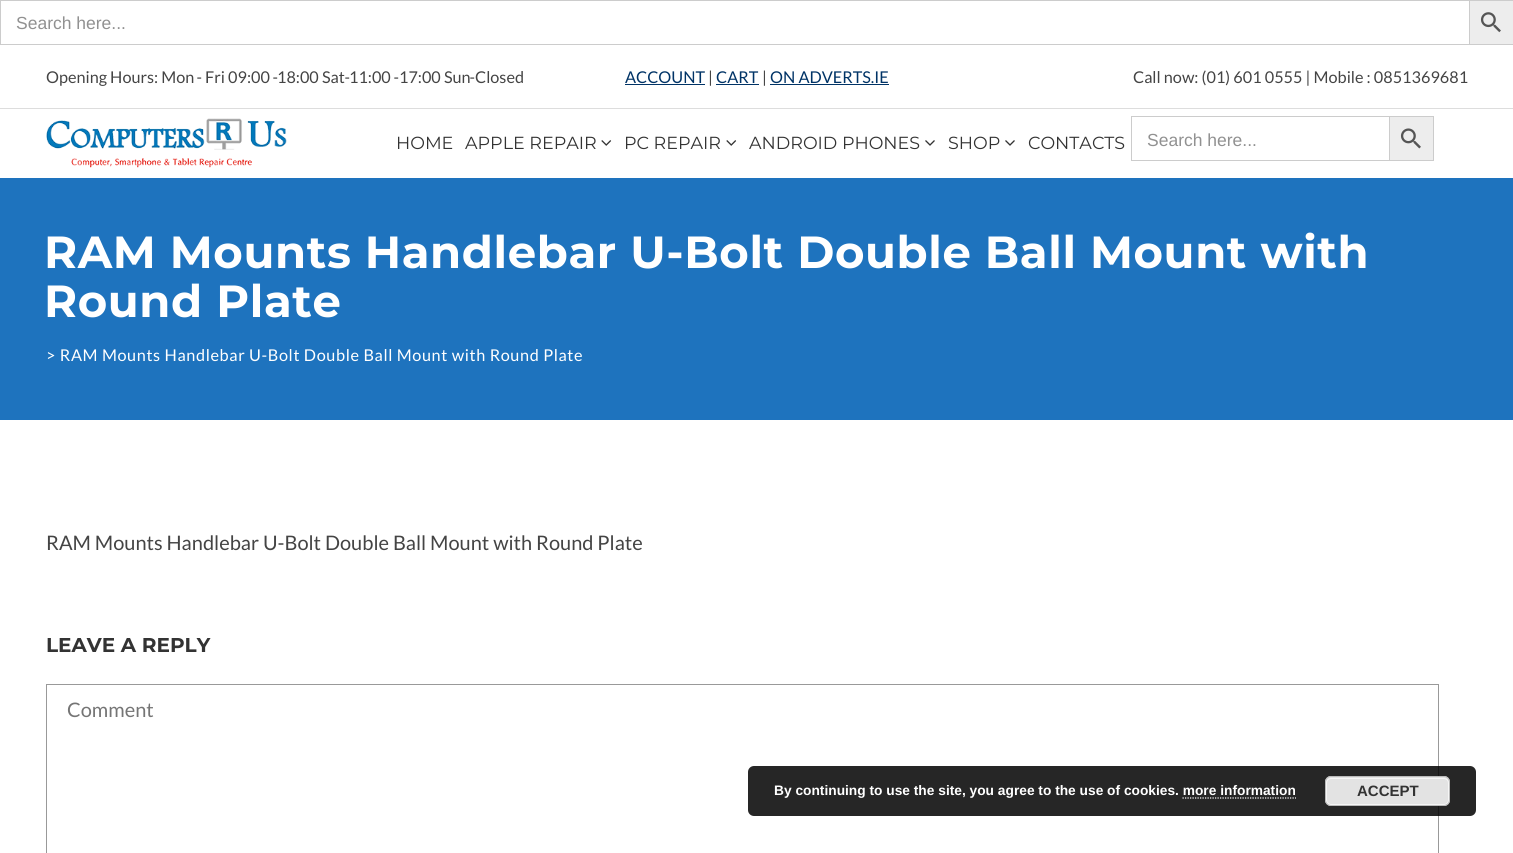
#include <cairo/cairo.h>
#include <math.h>
#include <stddef.h>


static void draw_spaced(cairo_t *cr, double x, double y, const char *s, double letter, double word) {
  cairo_move_to(cr, x, y);
  while (*s) {
    char ch[5] = {0};
    int n = 0;
    do ch[n++] = *s++; while ((*s & 0xC0) == 0x80);
    cairo_show_text(cr, ch);
    cairo_rel_move_to(cr, letter + word * (*ch == ' '), 0);
  }
}

static void rounded_rect(cairo_t *cr, double x, double y, double w, double h, double r) {
  cairo_new_sub_path(cr);
  cairo_arc(cr, x + w - r, y + h - r, r, 0, M_PI / 2);
  cairo_arc(cr, x + r, y + h - r, r, M_PI / 2, M_PI);
  cairo_arc(cr, x + r, y + r, r, M_PI, 1.5 * M_PI);
  cairo_arc(cr, x + w - r, y + r, r, 1.5 * M_PI, 2 * M_PI);
  cairo_close_path(cr);
}

static void draw_image(cairo_t *cr, const char *path, double x, double y, double w, double h) {
  cairo_surface_t *image = cairo_image_surface_create_from_png(path);
  cairo_save(cr);
  cairo_set_source_surface(cr, image, x, y);
  cairo_rectangle(cr, x, y, w, h);
  cairo_fill(cr);
  cairo_restore(cr);
  cairo_surface_destroy(image);
}

static void draw(cairo_t *cr) {
  cairo_set_source_rgb(cr, 1, 1, 1);
  cairo_paint(cr);
  cairo_set_source_rgb(cr, 204 / 255.0, 204 / 255.0, 204 / 255.0);
  cairo_rectangle(cr, 0, 0, 1469, 1);
  cairo_fill(cr);
  cairo_rectangle(cr, 0, 44, 1469, 1);
  cairo_fill(cr);
  cairo_rectangle(cr, 0, 0, 1, 45);
  cairo_fill(cr);
  cairo_set_source_rgb(cr, 237 / 255.0, 237 / 255.0, 237 / 255.0);
  cairo_rectangle(cr, 1469.5, 0.5, 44, 44);
  cairo_fill_preserve(cr);
  cairo_set_source_rgb(cr, 204 / 255.0, 204 / 255.0, 204 / 255.0);
  cairo_set_line_width(cr, 1);
  cairo_stroke(cr);
  draw_image(cr, "images/1.png", 1480, 12, 21, 21);
  cairo_set_source_rgb(cr, 221 / 255.0, 221 / 255.0, 221 / 255.0);
  cairo_rectangle(cr, 0, 108, 1513, 1);
  cairo_fill(cr);
  cairo_set_source_rgb(cr, 0, 51 / 255.0, 102 / 255.0);
  cairo_rectangle(cr, 625, 84, 80, 1);
  cairo_fill(cr);
  cairo_rectangle(cr, 716, 84, 43, 1);
  cairo_fill(cr);
  cairo_rectangle(cr, 770, 84, 119, 1);
  cairo_fill(cr);
  draw_image(cr, "images/2.png", 46, 118, 241, 50);
  draw_image(cr, "images/3.png", 601, 140, 11, 6);
  draw_image(cr, "images/3.png", 726, 140, 11, 6);
  draw_image(cr, "images/4.png", 925, 140, 10, 6);
  draw_image(cr, "images/4.png", 1005, 140, 10, 6);
  cairo_set_source_rgb(cr, 204 / 255.0, 204 / 255.0, 204 / 255.0);
  cairo_rectangle(cr, 1131, 116, 258, 1);
  cairo_fill(cr);
  cairo_rectangle(cr, 1131, 160, 258, 1);
  cairo_fill(cr);
  cairo_rectangle(cr, 1131, 116, 1, 45);
  cairo_fill(cr);
  cairo_set_source_rgb(cr, 237 / 255.0, 237 / 255.0, 237 / 255.0);
  cairo_rectangle(cr, 1389.5, 116.5, 44, 44);
  cairo_fill_preserve(cr);
  cairo_set_source_rgb(cr, 204 / 255.0, 204 / 255.0, 204 / 255.0);
  cairo_stroke(cr);
  draw_image(cr, "images/5.png", 1400, 128, 21, 21);
  cairo_set_source_rgb(cr, 30 / 255.0, 115 / 255.0, 190 / 255.0);
  cairo_rectangle(cr, 0, 178, 1513, 242);
  cairo_fill(cr);
  cairo_rectangle(cr, 46.5, 684.5, 1392, 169);
  cairo_set_source_rgb(cr, 153 / 255.0, 153 / 255.0, 153 / 255.0);
  cairo_stroke(cr);
  cairo_set_source_rgba(cr, 0, 0, 0, 0.85);
  rounded_rect(cr, 748, 766, 728, 50, 6);
  cairo_fill(cr);
  cairo_set_source_rgb(cr, 227 / 255.0, 227 / 255.0, 227 / 255.0);
  rounded_rect(cr, 1325, 776, 125, 30, 6);
  cairo_fill(cr);
  rounded_rect(cr, 1326.5, 778.5, 122, 26, 4.5);
  cairo_set_source_rgb(cr, 246 / 255.0, 246 / 255.0, 246 / 255.0);
  cairo_stroke(cr);
  rounded_rect(cr, 1325.5, 776.5, 124, 29, 5.5);
  cairo_set_source_rgb(cr, 187 / 255.0, 187 / 255.0, 187 / 255.0);
  cairo_stroke(cr);
  cairo_new_path(cr);
  cairo_move_to(cr, 1182.5, 798);
  cairo_line_to(cr, 1296, 798);
  cairo_set_source_rgb(cr, 1, 1, 1);
  cairo_set_line_width(cr, 1.2);
  cairo_set_dash(cr, (double[]){1.25, 1.25}, 2, 0);
  cairo_stroke(cr);
  cairo_select_font_face(cr, "Liberation Sans", CAIRO_FONT_SLANT_NORMAL, CAIRO_FONT_WEIGHT_NORMAL);
  cairo_set_font_size(cr, 17.5);
  cairo_set_source_rgb(cr, 145 / 255.0, 145 / 255.0, 145 / 255.0);
  cairo_move_to(cr, 16, 29);
  cairo_show_text(cr, "Search here...");
  cairo_select_font_face(cr, "Lato", CAIRO_FONT_SLANT_NORMAL, CAIRO_FONT_WEIGHT_NORMAL);
  cairo_set_font_size(cr, 16.25);
  cairo_set_source_rgb(cr, 68 / 255.0, 68 / 255.0, 68 / 255.0);
  cairo_move_to(cr, 46, 83);
  cairo_show_text(cr, "Opening Hours: Mon");
  cairo_select_font_face(cr, "Roboto", CAIRO_FONT_SLANT_NORMAL, CAIRO_FONT_WEIGHT_NORMAL);
  cairo_move_to(cr, 197, 83);
  cairo_show_text(cr, "‑");
  cairo_select_font_face(cr, "Lato", CAIRO_FONT_SLANT_NORMAL, CAIRO_FONT_WEIGHT_NORMAL);
  cairo_move_to(cr, 205, 83);
  cairo_show_text(cr, "Fri 09:00");
  cairo_select_font_face(cr, "Roboto", CAIRO_FONT_SLANT_NORMAL, CAIRO_FONT_WEIGHT_NORMAL);
  cairo_move_to(cr, 273, 83);
  cairo_show_text(cr, "‑");
  cairo_select_font_face(cr, "Lato", CAIRO_FONT_SLANT_NORMAL, CAIRO_FONT_WEIGHT_NORMAL);
  cairo_move_to(cr, 277, 83);
  cairo_show_text(cr, "18:00 Sat");
  cairo_select_font_face(cr, "Roboto", CAIRO_FONT_SLANT_NORMAL, CAIRO_FONT_WEIGHT_NORMAL);
  cairo_move_to(cr, 345, 83);
  cairo_show_text(cr, "‑");
  cairo_select_font_face(cr, "Lato", CAIRO_FONT_SLANT_NORMAL, CAIRO_FONT_WEIGHT_NORMAL);
  cairo_move_to(cr, 349, 83);
  cairo_show_text(cr, "11:00");
  cairo_select_font_face(cr, "Roboto", CAIRO_FONT_SLANT_NORMAL, CAIRO_FONT_WEIGHT_NORMAL);
  cairo_move_to(cr, 394, 83);
  cairo_show_text(cr, "‑");
  cairo_select_font_face(cr, "Lato", CAIRO_FONT_SLANT_NORMAL, CAIRO_FONT_WEIGHT_NORMAL);
  cairo_move_to(cr, 399, 83);
  cairo_show_text(cr, "17:00 Sun");
  cairo_select_font_face(cr, "Roboto", CAIRO_FONT_SLANT_NORMAL, CAIRO_FONT_WEIGHT_NORMAL);
  cairo_move_to(cr, 470, 83);
  cairo_show_text(cr, "‑");
  cairo_select_font_face(cr, "Lato", CAIRO_FONT_SLANT_NORMAL, CAIRO_FONT_WEIGHT_NORMAL);
  cairo_move_to(cr, 475, 83);
  cairo_show_text(cr, "Closed");
  cairo_set_source_rgb(cr, 0, 51 / 255.0, 102 / 255.0);
  cairo_move_to(cr, 625, 83);
  cairo_show_text(cr, "ACCOUNT");
  cairo_set_source_rgb(cr, 68 / 255.0, 68 / 255.0, 68 / 255.0);
  cairo_move_to(cr, 708, 83);
  cairo_show_text(cr, "|");
  cairo_set_source_rgb(cr, 0, 51 / 255.0, 102 / 255.0);
  cairo_move_to(cr, 716, 83);
  cairo_show_text(cr, "CART");
  cairo_set_source_rgb(cr, 68 / 255.0, 68 / 255.0, 68 / 255.0);
  cairo_move_to(cr, 762, 83);
  cairo_show_text(cr, "|");
  cairo_set_source_rgb(cr, 0, 51 / 255.0, 102 / 255.0);
  cairo_move_to(cr, 770, 83);
  cairo_show_text(cr, "ON ADVERTS.IE");
  cairo_set_source_rgb(cr, 68 / 255.0, 68 / 255.0, 68 / 255.0);
  cairo_move_to(cr, 1133, 83);
  cairo_show_text(cr, "Call now: (01) 601 0555 | Mobile : 0851369681");
  cairo_select_font_face(cr, "Montserrat", CAIRO_FONT_SLANT_NORMAL, CAIRO_FONT_WEIGHT_NORMAL);
  cairo_set_font_size(cr, 17.5);
  cairo_set_source_rgb(cr, 51 / 255.0, 51 / 255.0, 51 / 255.0);
  cairo_move_to(cr, 396, 149);
  cairo_show_text(cr, "HOME");
  cairo_move_to(cr, 465, 149);
  cairo_show_text(cr, "APPLE REPAIR");
  cairo_move_to(cr, 624, 149);
  cairo_show_text(cr, "PC REPAIR");
  cairo_move_to(cr, 749, 149);
  cairo_show_text(cr, "ANDROID PHONES");
  cairo_move_to(cr, 948, 149);
  cairo_show_text(cr, "SHOP");
  cairo_move_to(cr, 1028, 149);
  cairo_show_text(cr, "CONTACTS");
  cairo_select_font_face(cr, "Liberation Sans", CAIRO_FONT_SLANT_NORMAL, CAIRO_FONT_WEIGHT_NORMAL);
  cairo_set_source_rgb(cr, 145 / 255.0, 145 / 255.0, 145 / 255.0);
  cairo_move_to(cr, 1147, 146);
  cairo_show_text(cr, "Search here...");
  cairo_select_font_face(cr, "Montserrat", CAIRO_FONT_SLANT_NORMAL, CAIRO_FONT_WEIGHT_BOLD);
  cairo_set_font_size(cr, 45);
  cairo_set_source_rgb(cr, 1, 1, 1);
  draw_spaced(cr, 44, 268, "RAM Mounts Handlebar U-Bolt Double Ball Mount with", 0.62, 0);
  draw_spaced(cr, 44, 317, "Round Plate", 0.62, 0);
  cairo_select_font_face(cr, "Lato", CAIRO_FONT_SLANT_NORMAL, CAIRO_FONT_WEIGHT_NORMAL);
  cairo_set_font_size(cr, 16.25);
  draw_spaced(cr, 46, 361, "> RAM Mounts Handlebar U-Bolt Double Ball Mount with Round Plate", 0.62, 0);
  cairo_set_font_size(cr, 20);
  cairo_set_source_rgb(cr, 68 / 255.0, 68 / 255.0, 68 / 255.0);
  cairo_move_to(cr, 46, 550);
  cairo_show_text(cr, "RAM Mounts Handlebar U-Bolt Double Ball Mount with Round Plate");
  cairo_select_font_face(cr, "Montserrat", CAIRO_FONT_SLANT_NORMAL, CAIRO_FONT_WEIGHT_BOLD);
  cairo_set_source_rgb(cr, 51 / 255.0, 51 / 255.0, 51 / 255.0);
  cairo_move_to(cr, 46, 652);
  cairo_show_text(cr, "LEAVE A REPLY");
  cairo_select_font_face(cr, "Lato", CAIRO_FONT_SLANT_NORMAL, CAIRO_FONT_WEIGHT_NORMAL);
  cairo_set_source_rgb(cr, 117 / 255.0, 117 / 255.0, 117 / 255.0);
  cairo_move_to(cr, 67, 717);
  cairo_show_text(cr, "Comment");
  cairo_select_font_face(cr, "Liberation Sans", CAIRO_FONT_SLANT_NORMAL, CAIRO_FONT_WEIGHT_BOLD);
  cairo_set_font_size(cr, 13.75);
  cairo_set_source_rgb(cr, 1, 1, 1);
  cairo_move_to(cr, 774, 795);
  cairo_show_text(cr, "By continuing to use the site, you agree to the use of cookies. more information");
  cairo_set_font_size(cr, 15);
  cairo_set_source_rgb(cr, 51 / 255.0, 51 / 255.0, 51 / 255.0);
  cairo_move_to(cr, 1357, 796);
  cairo_show_text(cr, "ACCEPT");
}

int main(void) {
  cairo_surface_t *surface = cairo_image_surface_create(CAIRO_FORMAT_RGB24, 1513, 853);
  cairo_t *cr = cairo_create(surface);
  cairo_font_options_t *options = cairo_font_options_create();
  cairo_font_options_set_hint_metrics(options, CAIRO_HINT_METRICS_OFF);
  cairo_font_options_set_hint_style(options, CAIRO_HINT_STYLE_NONE);
  cairo_set_font_options(cr, options);
  cairo_set_miter_limit(cr, 4);
  draw(cr);
  cairo_surface_write_to_png(surface, "out.png");
  cairo_font_options_destroy(options);
  cairo_destroy(cr);
  cairo_surface_destroy(surface);
  return 0;
}
